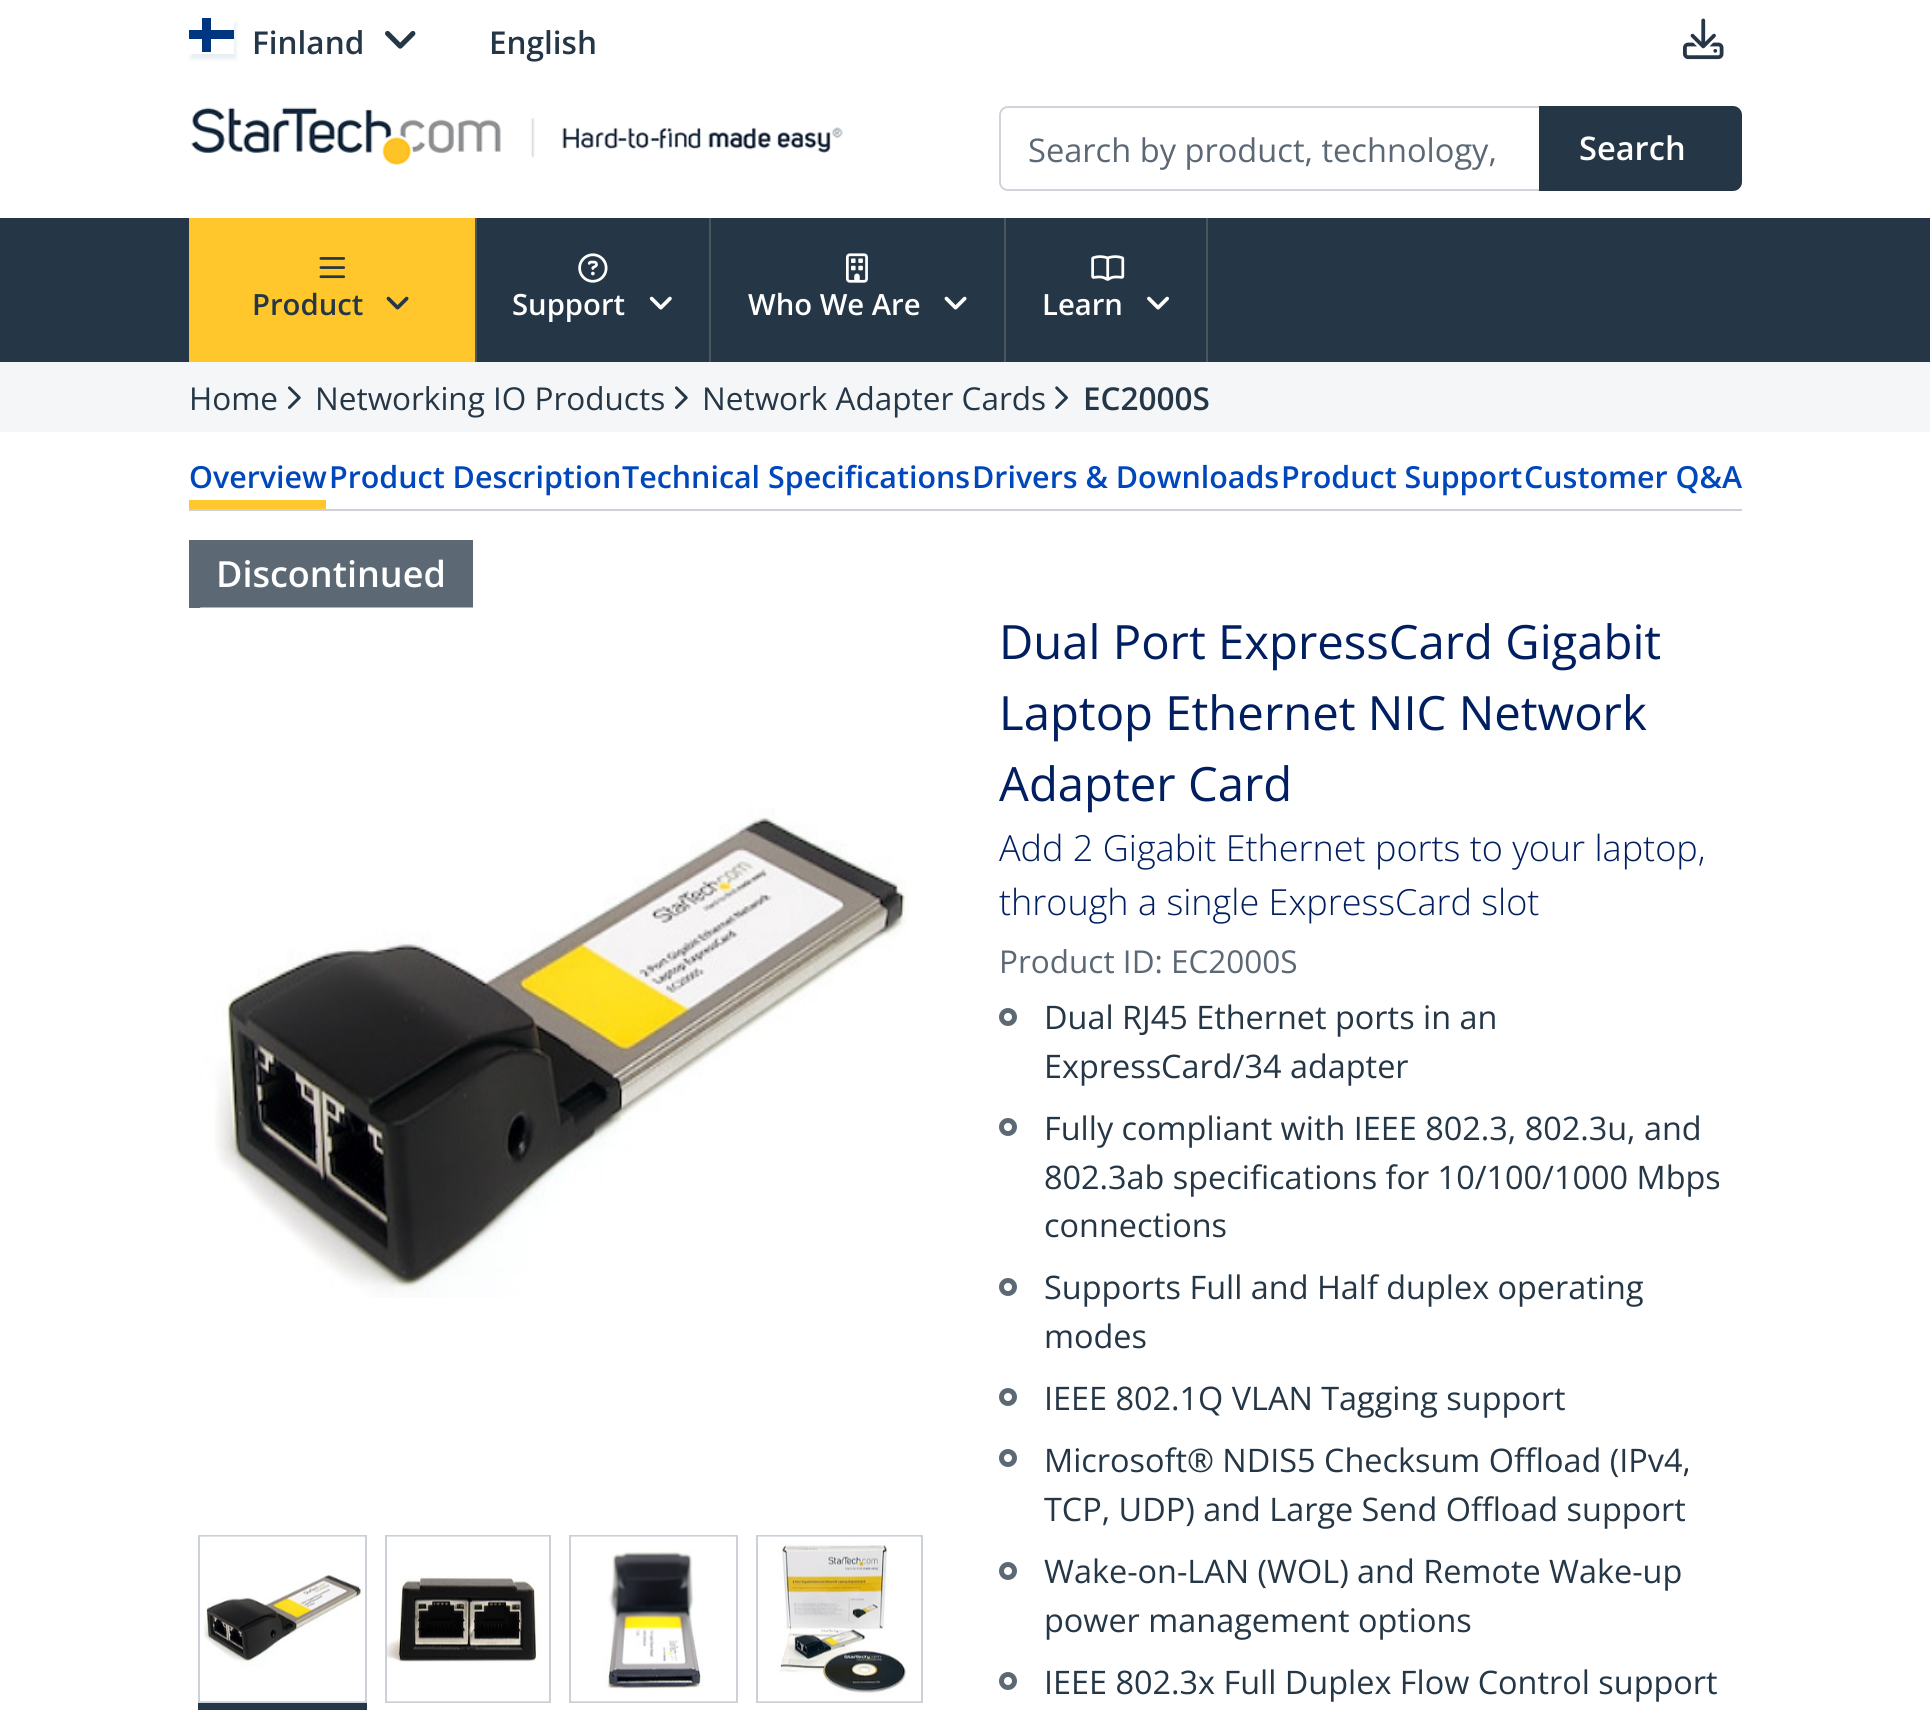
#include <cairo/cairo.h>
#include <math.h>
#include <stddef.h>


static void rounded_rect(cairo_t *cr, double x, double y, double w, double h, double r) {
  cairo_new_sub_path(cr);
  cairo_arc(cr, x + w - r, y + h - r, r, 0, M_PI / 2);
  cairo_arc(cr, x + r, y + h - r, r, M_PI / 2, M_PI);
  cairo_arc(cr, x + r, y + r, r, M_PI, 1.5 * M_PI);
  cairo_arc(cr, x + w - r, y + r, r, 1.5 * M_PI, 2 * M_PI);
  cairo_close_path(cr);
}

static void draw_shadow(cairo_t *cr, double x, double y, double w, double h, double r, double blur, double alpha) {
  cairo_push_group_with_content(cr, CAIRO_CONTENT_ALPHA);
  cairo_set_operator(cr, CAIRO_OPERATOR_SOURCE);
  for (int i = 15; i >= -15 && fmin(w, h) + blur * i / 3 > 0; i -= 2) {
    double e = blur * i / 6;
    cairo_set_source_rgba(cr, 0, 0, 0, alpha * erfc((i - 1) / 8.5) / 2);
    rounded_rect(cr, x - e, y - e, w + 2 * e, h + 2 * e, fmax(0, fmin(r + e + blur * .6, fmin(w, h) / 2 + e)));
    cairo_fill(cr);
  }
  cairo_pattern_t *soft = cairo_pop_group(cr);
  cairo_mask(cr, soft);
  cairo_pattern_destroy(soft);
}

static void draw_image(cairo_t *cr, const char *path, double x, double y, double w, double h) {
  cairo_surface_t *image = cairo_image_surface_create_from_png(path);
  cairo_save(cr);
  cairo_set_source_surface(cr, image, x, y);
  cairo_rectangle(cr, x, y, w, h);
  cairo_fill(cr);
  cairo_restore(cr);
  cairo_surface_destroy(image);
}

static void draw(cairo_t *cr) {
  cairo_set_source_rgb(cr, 1, 1, 1);
  cairo_paint(cr);
  cairo_save(cr);
  cairo_set_fill_rule(cr, CAIRO_FILL_RULE_EVEN_ODD);
  cairo_new_path(cr);
  cairo_move_to(cr, 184, 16);
  cairo_line_to(cr, 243, 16);
  cairo_line_to(cr, 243, 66);
  cairo_line_to(cr, 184, 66);
  cairo_close_path(cr);
  cairo_move_to(cr, 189, 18);
  cairo_line_to(cr, 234, 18);
  cairo_line_to(cr, 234, 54);
  cairo_line_to(cr, 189, 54);
  cairo_close_path(cr);
  cairo_clip(cr);
  cairo_set_source_rgb(cr, 11 / 255.0, 87 / 255.0, 128 / 255.0);
  draw_shadow(cr, 191, 23, 45, 36, 0, 2, 0.1);
  cairo_restore(cr);
  cairo_set_source_rgb(cr, 0, 53 / 255.0, 128 / 255.0);
  cairo_rectangle(cr, 189, 30, 45, 9);
  cairo_fill(cr);
  cairo_rectangle(cr, 202, 18, 9, 34);
  cairo_fill(cr);
  draw_image(cr, "images/1.png", 385, 31, 31, 18);
  draw_image(cr, "images/2.png", 1683, 18, 41, 42);
  draw_image(cr, "images/3.png", 191, 107, 652, 59);
  cairo_set_source_rgb(cr, 37 / 255.0, 55 / 255.0, 70 / 255.0);
  cairo_new_path(cr);
  cairo_move_to(cr, 1523, 106);
  cairo_line_to(cr, 1733, 106);
  cairo_curve_to(cr, 1738, 106, 1742, 110, 1742, 115);
  cairo_line_to(cr, 1742, 182);
  cairo_curve_to(cr, 1742, 187, 1738, 191, 1733, 191);
  cairo_line_to(cr, 1523, 191);
  cairo_close_path(cr);
  cairo_fill(cr);
  cairo_set_source_rgb(cr, 1, 1, 1);
  cairo_new_path(cr);
  cairo_move_to(cr, 1008, 108);
  cairo_line_to(cr, 1539, 108);
  cairo_line_to(cr, 1539, 189);
  cairo_line_to(cr, 1008, 189);
  cairo_curve_to(cr, 1004, 189, 1001, 186, 1001, 182);
  cairo_line_to(cr, 1001, 115);
  cairo_curve_to(cr, 1001, 111, 1004, 108, 1008, 108);
  cairo_close_path(cr);
  cairo_fill(cr);
  cairo_set_source_rgb(cr, 206 / 255.0, 212 / 255.0, 218 / 255.0);
  cairo_set_fill_rule(cr, CAIRO_FILL_RULE_EVEN_ODD);
  cairo_new_path(cr);
  cairo_move_to(cr, 1008, 106);
  cairo_line_to(cr, 1539, 106);
  cairo_line_to(cr, 1539, 191);
  cairo_line_to(cr, 1008, 191);
  cairo_curve_to(cr, 1003, 191, 999, 187, 999, 182);
  cairo_line_to(cr, 999, 115);
  cairo_curve_to(cr, 999, 110, 1003, 106, 1008, 106);
  cairo_close_path(cr);
  cairo_move_to(cr, 1008, 108);
  cairo_line_to(cr, 1539, 108);
  cairo_line_to(cr, 1539, 189);
  cairo_line_to(cr, 1008, 189);
  cairo_curve_to(cr, 1004, 189, 1001, 186, 1001, 182);
  cairo_line_to(cr, 1001, 115);
  cairo_curve_to(cr, 1001, 111, 1004, 108, 1008, 108);
  cairo_close_path(cr);
  cairo_fill(cr);
  cairo_set_source_rgb(cr, 37 / 255.0, 55 / 255.0, 70 / 255.0);
  cairo_rectangle(cr, 0, 218, 1930, 144);
  cairo_fill(cr);
  cairo_set_source_rgb(cr, 1, 199 / 255.0, 44 / 255.0);
  cairo_rectangle(cr, 189, 218, 286, 144);
  cairo_fill(cr);
  cairo_set_source_rgb(cr, 74 / 255.0, 85 / 255.0, 94 / 255.0);
  cairo_rectangle(cr, 475, 218, 2, 144);
  cairo_fill(cr);
  draw_image(cr, "images/4.png", 319, 257, 27, 22);
  draw_image(cr, "images/5.png", 386, 296, 23, 14);
  cairo_rectangle(cr, 709, 218, 2, 144);
  cairo_fill(cr);
  draw_image(cr, "images/6.png", 578, 253, 30, 30);
  draw_image(cr, "images/7.png", 649, 296, 23, 14);
  cairo_rectangle(cr, 1004, 218, 2, 144);
  cairo_fill(cr);
  draw_image(cr, "images/8.png", 846, 253, 22, 30);
  draw_image(cr, "images/9.png", 944, 296, 23, 14);
  cairo_rectangle(cr, 1206, 218, 2, 144);
  cairo_fill(cr);
  draw_image(cr, "images/10.png", 1091, 255, 34, 26);
  draw_image(cr, "images/11.png", 1147, 296, 22, 14);
  cairo_set_source_rgb(cr, 244 / 255.0, 246 / 255.0, 248 / 255.0);
  cairo_rectangle(cr, 0, 362, 1930, 70);
  cairo_fill(cr);
  draw_image(cr, "images/12.png", 287, 386, 14, 23);
  draw_image(cr, "images/12.png", 674, 386, 14, 23);
  draw_image(cr, "images/13.png", 1055, 386, 13, 23);
  cairo_set_source_rgb(cr, 204 / 255.0, 209 / 255.0, 215 / 255.0);
  cairo_rectangle(cr, 189, 509, 1553, 2);
  cairo_fill(cr);
  cairo_set_source_rgb(cr, 1, 199 / 255.0, 44 / 255.0);
  cairo_rectangle(cr, 189, 500, 137, 9);
  cairo_fill(cr);
  cairo_set_source_rgb(cr, 92 / 255.0, 105 / 255.0, 117 / 255.0);
  cairo_rectangle(cr, 189, 540, 284, 68);
  cairo_fill(cr);
  draw_image(cr, "images/14.png", 200, 607, 709, 691);
  cairo_set_source_rgb(cr, 37 / 255.0, 55 / 255.0, 70 / 255.0);
  cairo_rectangle(cr, 198, 1703, 169, 7);
  cairo_fill(cr);
  cairo_rectangle(cr, 199, 1536, 167, 166);
  cairo_set_source_rgb(cr, 204 / 255.0, 209 / 255.0, 215 / 255.0);
  cairo_stroke(cr);
  draw_image(cr, "images/15.png", 200, 1536, 165, 166);
  cairo_rectangle(cr, 386, 1536, 164, 166);
  cairo_stroke(cr);
  draw_image(cr, "images/16.png", 387, 1536, 162, 166);
  cairo_rectangle(cr, 570, 1536, 167, 166);
  cairo_stroke(cr);
  draw_image(cr, "images/17.png", 571, 1536, 165, 166);
  cairo_rectangle(cr, 757, 1536, 165, 166);
  cairo_stroke(cr);
  draw_image(cr, "images/18.png", 758, 1536, 163, 166);
  cairo_arc(cr, 1008, 1017, 6.5, 0, 2 * M_PI);
  cairo_set_source_rgb(cr, 92 / 255.0, 105 / 255.0, 117 / 255.0);
  cairo_set_line_width(cr, 5);
  cairo_stroke(cr);
  cairo_arc(cr, 1008, 1127, 6.5, 0, 2 * M_PI);
  cairo_stroke(cr);
  cairo_arc(cr, 1008, 1287, 6.5, 0, 2 * M_PI);
  cairo_stroke(cr);
  cairo_arc(cr, 1008, 1397, 6.5, 0, 2 * M_PI);
  cairo_stroke(cr);
  cairo_arc(cr, 1008, 1458, 6.5, 0, 2 * M_PI);
  cairo_stroke(cr);
  cairo_arc(cr, 1008, 1571, 6.5, 0, 2 * M_PI);
  cairo_stroke(cr);
  cairo_arc(cr, 1008, 1681, 6.5, 0, 2 * M_PI);
  cairo_stroke(cr);
  cairo_select_font_face(cr, "Open Sans SemiBold", CAIRO_FONT_SLANT_NORMAL, CAIRO_FONT_WEIGHT_NORMAL);
  cairo_set_font_size(cr, 31.5);
  cairo_set_source_rgb(cr, 37 / 255.0, 55 / 255.0, 70 / 255.0);
  cairo_move_to(cr, 252, 54);
  cairo_show_text(cr, "Finland");
  cairo_move_to(cr, 489, 54);
  cairo_show_text(cr, "English");
  cairo_select_font_face(cr, "Open Sans", CAIRO_FONT_SLANT_NORMAL, CAIRO_FONT_WEIGHT_NORMAL);
  cairo_set_font_size(cr, 32.6);
  cairo_set_source_rgb(cr, 92 / 255.0, 105 / 255.0, 117 / 255.0);
  cairo_move_to(cr, 1028, 162);
  cairo_show_text(cr, "Search by product, technology,");
  cairo_select_font_face(cr, "Open Sans SemiBold", CAIRO_FONT_SLANT_NORMAL, CAIRO_FONT_WEIGHT_NORMAL);
  cairo_set_source_rgb(cr, 1, 1, 1);
  cairo_move_to(cr, 1579, 160);
  cairo_show_text(cr, "Search");
  cairo_set_font_size(cr, 29.25);
  cairo_set_source_rgb(cr, 37 / 255.0, 55 / 255.0, 70 / 255.0);
  cairo_move_to(cr, 252, 315);
  cairo_show_text(cr, "Product");
  cairo_set_source_rgb(cr, 1, 1, 1);
  cairo_move_to(cr, 512, 315);
  cairo_show_text(cr, "Support");
  cairo_move_to(cr, 748, 315);
  cairo_show_text(cr, "Who We Are");
  cairo_move_to(cr, 1042, 315);
  cairo_show_text(cr, "Learn");
  cairo_select_font_face(cr, "Open Sans", CAIRO_FONT_SLANT_NORMAL, CAIRO_FONT_WEIGHT_NORMAL);
  cairo_set_font_size(cr, 31.5);
  cairo_set_source_rgb(cr, 37 / 255.0, 55 / 255.0, 70 / 255.0);
  cairo_move_to(cr, 189, 410);
  cairo_show_text(cr, "Home");
  cairo_move_to(cr, 315, 410);
  cairo_show_text(cr, "Networking IO Products");
  cairo_move_to(cr, 702, 410);
  cairo_show_text(cr, "Network Adapter Cards");
  cairo_select_font_face(cr, "Open Sans SemiBold", CAIRO_FONT_SLANT_NORMAL, CAIRO_FONT_WEIGHT_NORMAL);
  cairo_move_to(cr, 1083, 410);
  cairo_show_text(cr, "EC2000S");
  cairo_set_font_size(cr, 30.4);
  cairo_set_source_rgb(cr, 0, 71 / 255.0, 187 / 255.0);
  cairo_move_to(cr, 189, 488);
  cairo_show_text(cr, "Overview");
  cairo_move_to(cr, 329, 488);
  cairo_show_text(cr, "Product Description");
  cairo_move_to(cr, 622, 488);
  cairo_show_text(cr, "Technical Specifications");
  cairo_move_to(cr, 972, 488);
  cairo_show_text(cr, "Drivers & Downloads");
  cairo_move_to(cr, 1281, 488);
  cairo_show_text(cr, "Product Support");
  cairo_move_to(cr, 1524, 488);
  cairo_show_text(cr, "Customer Q&A");
  cairo_set_font_size(cr, 36);
  cairo_set_source_rgb(cr, 1, 1, 1);
  cairo_move_to(cr, 216, 587);
  cairo_show_text(cr, "Discontinued");
  cairo_select_font_face(cr, "Open Sans", CAIRO_FONT_SLANT_NORMAL, CAIRO_FONT_WEIGHT_NORMAL);
  cairo_set_font_size(cr, 47.25);
  cairo_set_source_rgb(cr, 0, 30 / 255.0, 96 / 255.0);
  cairo_move_to(cr, 999, 659);
  cairo_show_text(cr, "Dual Port ExpressCard Gigabit");
  cairo_move_to(cr, 999, 730);
  cairo_show_text(cr, "Laptop Ethernet NIC Network");
  cairo_move_to(cr, 999, 801);
  cairo_show_text(cr, "Adapter Card");
  cairo_select_font_face(cr, "Open Sans Light", CAIRO_FONT_SLANT_NORMAL, CAIRO_FONT_WEIGHT_NORMAL);
  cairo_set_font_size(cr, 36);
  cairo_move_to(cr, 999, 861);
  cairo_show_text(cr, "Add 2 Gigabit Ethernet ports to your laptop,");
  cairo_move_to(cr, 999, 915);
  cairo_show_text(cr, "through a single ExpressCard slot");
  cairo_select_font_face(cr, "Open Sans", CAIRO_FONT_SLANT_NORMAL, CAIRO_FONT_WEIGHT_NORMAL);
  cairo_set_font_size(cr, 31.5);
  cairo_set_source_rgb(cr, 92 / 255.0, 105 / 255.0, 117 / 255.0);
  cairo_move_to(cr, 999, 973);
  cairo_show_text(cr, "Product ID: EC2000S");
  cairo_set_font_size(cr, 32.4);
  cairo_set_source_rgb(cr, 37 / 255.0, 55 / 255.0, 70 / 255.0);
  cairo_move_to(cr, 1044, 1029);
  cairo_show_text(cr, "Dual RJ45 Ethernet ports in an");
  cairo_move_to(cr, 1044, 1078);
  cairo_show_text(cr, "ExpressCard/34 adapter");
  cairo_move_to(cr, 1044, 1140);
  cairo_show_text(cr, "Fully compliant with IEEE 802.3, 802.3u, and");
  cairo_move_to(cr, 1044, 1189);
  cairo_show_text(cr, "802.3ab specifications for 10/100/1000 Mbps");
  cairo_move_to(cr, 1044, 1237);
  cairo_show_text(cr, "connections");
  cairo_move_to(cr, 1044, 1299);
  cairo_show_text(cr, "Supports Full and Half duplex operating");
  cairo_move_to(cr, 1044, 1348);
  cairo_show_text(cr, "modes");
  cairo_move_to(cr, 1044, 1410);
  cairo_show_text(cr, "IEEE 802.1Q VLAN Tagging support");
  cairo_move_to(cr, 1044, 1472);
  cairo_show_text(cr, "Microsoft® NDIS5 Checksum Offload (IPv4,");
  cairo_move_to(cr, 1044, 1521);
  cairo_show_text(cr, "TCP, UDP) and Large Send Offload support");
  cairo_move_to(cr, 1044, 1583);
  cairo_show_text(cr, "Wake-on-LAN (WOL) and Remote Wake-up");
  cairo_move_to(cr, 1044, 1632);
  cairo_show_text(cr, "power management options");
  cairo_move_to(cr, 1044, 1694);
  cairo_show_text(cr, "IEEE 802.3x Full Duplex Flow Control support");
}

int main(void) {
  cairo_surface_t *surface = cairo_image_surface_create(CAIRO_FORMAT_RGB24, 1930, 1729);
  cairo_t *cr = cairo_create(surface);
  cairo_font_options_t *options = cairo_font_options_create();
  cairo_font_options_set_hint_metrics(options, CAIRO_HINT_METRICS_OFF);
  cairo_font_options_set_hint_style(options, CAIRO_HINT_STYLE_NONE);
  cairo_set_font_options(cr, options);
  cairo_set_miter_limit(cr, 4);
  draw(cr);
  cairo_surface_write_to_png(surface, "out.png");
  cairo_font_options_destroy(options);
  cairo_destroy(cr);
  cairo_surface_destroy(surface);
  return 0;
}
